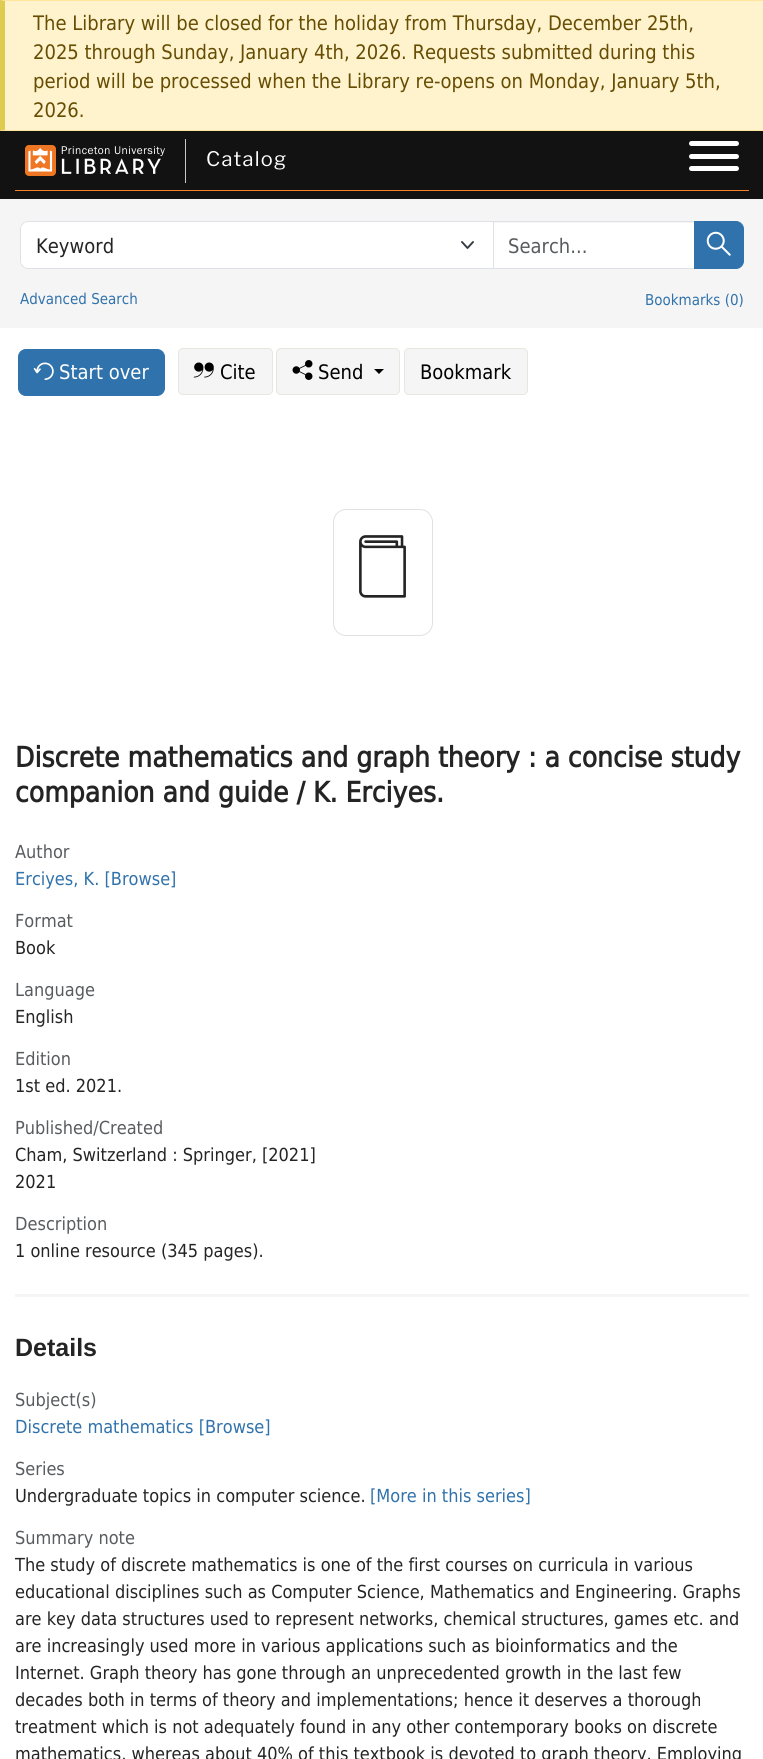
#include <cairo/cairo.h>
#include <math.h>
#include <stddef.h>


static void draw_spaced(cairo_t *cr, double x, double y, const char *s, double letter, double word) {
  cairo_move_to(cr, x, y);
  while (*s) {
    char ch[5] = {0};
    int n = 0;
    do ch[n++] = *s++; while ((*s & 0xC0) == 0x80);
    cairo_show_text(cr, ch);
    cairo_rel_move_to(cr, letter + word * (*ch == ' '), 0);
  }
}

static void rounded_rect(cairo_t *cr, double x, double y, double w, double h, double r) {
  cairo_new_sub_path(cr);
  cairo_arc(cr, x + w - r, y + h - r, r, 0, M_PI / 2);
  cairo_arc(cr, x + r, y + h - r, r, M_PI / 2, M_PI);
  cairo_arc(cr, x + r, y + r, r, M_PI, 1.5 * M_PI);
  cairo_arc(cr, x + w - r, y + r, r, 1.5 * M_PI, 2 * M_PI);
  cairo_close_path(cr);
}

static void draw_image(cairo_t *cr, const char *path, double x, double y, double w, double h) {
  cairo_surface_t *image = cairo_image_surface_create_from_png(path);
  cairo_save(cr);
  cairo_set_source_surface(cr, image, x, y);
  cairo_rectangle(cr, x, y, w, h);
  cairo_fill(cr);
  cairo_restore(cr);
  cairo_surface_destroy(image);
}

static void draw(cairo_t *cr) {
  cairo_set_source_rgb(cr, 245 / 255.0, 245 / 255.0, 245 / 255.0);
  cairo_paint(cr);
  cairo_set_source_rgb(cr, 1, 243 / 255.0, 205 / 255.0);
  cairo_rectangle(cr, 5, 1, 758, 129);
  cairo_fill(cr);
  cairo_set_source_rgb(cr, 1, 230 / 255.0, 156 / 255.0);
  cairo_new_path(cr);
  cairo_move_to(cr, 0, 0);
  cairo_line_to(cr, 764, 0);
  cairo_line_to(cr, 762, 1);
  cairo_line_to(cr, 5, 1);
  cairo_close_path(cr);
  cairo_fill(cr);
  cairo_new_path(cr);
  cairo_move_to(cr, 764, 131);
  cairo_line_to(cr, 0, 131);
  cairo_line_to(cr, 5, 130);
  cairo_line_to(cr, 762, 130);
  cairo_close_path(cr);
  cairo_fill(cr);
  cairo_set_source_rgb(cr, 224 / 255.0, 203 / 255.0, 82 / 255.0);
  cairo_new_path(cr);
  cairo_move_to(cr, 0, 131);
  cairo_line_to(cr, 0, 0);
  cairo_line_to(cr, 5, 1);
  cairo_line_to(cr, 5, 130);
  cairo_close_path(cr);
  cairo_fill(cr);
  cairo_set_source_rgb(cr, 18 / 255.0, 18 / 255.0, 18 / 255.0);
  cairo_rectangle(cr, 0, 131, 763, 68);
  cairo_fill(cr);
  cairo_set_source_rgb(cr, 245 / 255.0, 128 / 255.0, 37 / 255.0);
  cairo_rectangle(cr, 15, 190, 734, 1);
  cairo_fill(cr);
  draw_image(cr, "images/1.png", 25, 145, 140, 31);
  cairo_set_source_rgb(cr, 197 / 255.0, 200 / 255.0, 206 / 255.0);
  cairo_rectangle(cr, 185, 139, 1, 44);
  cairo_fill(cr);
  cairo_set_source_rgb(cr, 1, 1, 1);
  rounded_rect(cr, 689, 154, 50, 5, 2.5);
  cairo_fill(cr);
  rounded_rect(cr, 689, 141, 50, 5, 2.5);
  cairo_fill(cr);
  rounded_rect(cr, 689, 166, 50, 5, 2.5);
  cairo_fill(cr);
  cairo_rectangle(cr, 494, 223, 200, 45);
  cairo_fill(cr);
  cairo_rectangle(cr, 493.5, 221.5, 201, 47);
  cairo_set_source_rgb(cr, 222 / 255.0, 226 / 255.0, 230 / 255.0);
  cairo_set_line_width(cr, 1);
  cairo_stroke(cr);
  cairo_set_source_rgb(cr, 1, 1, 1);
  cairo_new_path(cr);
  cairo_move_to(cr, 28, 221);
  cairo_line_to(cr, 494, 221);
  cairo_line_to(cr, 494, 269);
  cairo_line_to(cr, 28, 269);
  cairo_curve_to(cr, 23.5, 269, 20, 265.5, 20, 261);
  cairo_line_to(cr, 20, 229);
  cairo_curve_to(cr, 20, 224.5, 23.5, 221, 28, 221);
  cairo_close_path(cr);
  cairo_fill(cr);
  cairo_new_path(cr);
  cairo_move_to(cr, 462, 242);
  cairo_line_to(cr, 467.5, 248);
  cairo_line_to(cr, 473, 242);
  cairo_set_source_rgb(cr, 52 / 255.0, 58 / 255.0, 64 / 255.0);
  cairo_set_line_width(cr, 1.9);
  cairo_set_line_cap(cr, CAIRO_LINE_CAP_ROUND);
  cairo_set_line_join(cr, CAIRO_LINE_JOIN_ROUND);
  cairo_stroke(cr);
  cairo_new_path(cr);
  cairo_move_to(cr, 28, 221.5);
  cairo_line_to(cr, 493.5, 221.5);
  cairo_line_to(cr, 493.5, 268.5);
  cairo_line_to(cr, 28, 268.5);
  cairo_curve_to(cr, 24, 268.5, 20.5, 265, 20.5, 261);
  cairo_line_to(cr, 20.5, 229);
  cairo_curve_to(cr, 20.5, 225, 24, 221.5, 28, 221.5);
  cairo_close_path(cr);
  cairo_set_source_rgb(cr, 222 / 255.0, 226 / 255.0, 230 / 255.0);
  cairo_set_line_width(cr, 1);
  cairo_set_line_cap(cr, CAIRO_LINE_CAP_BUTT);
  cairo_set_line_join(cr, CAIRO_LINE_JOIN_MITER);
  cairo_stroke(cr);
  cairo_set_source_rgb(cr, 48 / 255.0, 114 / 255.0, 171 / 255.0);
  cairo_new_path(cr);
  cairo_move_to(cr, 694.5, 221.5);
  cairo_line_to(cr, 736, 221.5);
  cairo_curve_to(cr, 740, 221.5, 743.5, 225, 743.5, 229);
  cairo_line_to(cr, 743.5, 261);
  cairo_curve_to(cr, 743.5, 265, 740, 268.5, 736, 268.5);
  cairo_line_to(cr, 694.5, 268.5);
  cairo_close_path(cr);
  cairo_fill_preserve(cr);
  cairo_stroke(cr);
  draw_image(cr, "images/2.png", 706, 231, 25, 25);
  cairo_set_source_rgb(cr, 1, 1, 1);
  cairo_rectangle(cr, 0, 328, 763, 1431);
  cairo_fill(cr);
  cairo_set_source_rgb(cr, 48 / 255.0, 114 / 255.0, 171 / 255.0);
  rounded_rect(cr, 18.5, 349.5, 146, 46, 7.5);
  cairo_fill_preserve(cr);
  cairo_stroke(cr);
  draw_image(cr, "images/3.png", 33, 362, 21, 18);
  cairo_set_source_rgb(cr, 245 / 255.0, 245 / 255.0, 245 / 255.0);
  rounded_rect(cr, 178.5, 348.5, 94, 46, 4.5);
  cairo_fill_preserve(cr);
  cairo_set_source_rgb(cr, 232 / 255.0, 230 / 255.0, 223 / 255.0);
  cairo_stroke(cr);
  draw_image(cr, "images/4.png", 193, 362, 21, 16);
  cairo_set_source_rgb(cr, 245 / 255.0, 245 / 255.0, 245 / 255.0);
  rounded_rect(cr, 276.5, 348.5, 123, 46, 4.5);
  cairo_fill_preserve(cr);
  cairo_set_source_rgb(cr, 232 / 255.0, 230 / 255.0, 223 / 255.0);
  cairo_stroke(cr);
  draw_image(cr, "images/5.png", 292, 360, 21, 20);
  cairo_set_source_rgb(cr, 0, 0, 0);
  cairo_new_path(cr);
  cairo_move_to(cr, 374, 369);
  cairo_line_to(cr, 384, 369);
  cairo_line_to(cr, 379, 374);
  cairo_close_path(cr);
  cairo_fill(cr);
  cairo_set_source_rgb(cr, 245 / 255.0, 245 / 255.0, 245 / 255.0);
  rounded_rect(cr, 404.5, 348.5, 123, 46, 4.5);
  cairo_fill_preserve(cr);
  cairo_set_source_rgb(cr, 232 / 255.0, 230 / 255.0, 223 / 255.0);
  cairo_stroke(cr);
  rounded_rect(cr, 333.5, 509.5, 99, 126, 12.5);
  cairo_set_source_rgb(cr, 225 / 255.0, 225 / 255.0, 225 / 255.0);
  cairo_stroke(cr);
  draw_image(cr, "images/6.png", 359, 535, 47, 63);
  cairo_set_source_rgb(cr, 245 / 255.0, 245 / 255.0, 245 / 255.0);
  cairo_rectangle(cr, 15, 1294, 734, 3);
  cairo_fill(cr);
  cairo_select_font_face(cr, "DejaVu Sans", CAIRO_FONT_SLANT_NORMAL, CAIRO_FONT_WEIGHT_NORMAL);
  cairo_set_font_size(cr, 20);
  cairo_set_source_rgb(cr, 102 / 255.0, 77 / 255.0, 3 / 255.0);
  cairo_move_to(cr, 33, 30);
  cairo_show_text(cr, "The Library will be closed for the holiday from Thursday, December 25th,");
  cairo_move_to(cr, 33, 59);
  cairo_show_text(cr, "2025 through Sunday, January 4th, 2026. Requests submitted during this");
  cairo_move_to(cr, 33, 88);
  cairo_show_text(cr, "period will be processed when the Library re-opens on Monday, January 5th,");
  cairo_move_to(cr, 33, 117);
  cairo_show_text(cr, "2026.");
  cairo_select_font_face(cr, "Libre Franklin", CAIRO_FONT_SLANT_NORMAL, CAIRO_FONT_WEIGHT_NORMAL);
  cairo_set_source_rgb(cr, 1, 1, 1);
  draw_spaced(cr, 206, 166, "Catalog", 1.25, 0);
  cairo_select_font_face(cr, "DejaVu Sans", CAIRO_FONT_SLANT_NORMAL, CAIRO_FONT_WEIGHT_NORMAL);
  cairo_set_source_rgb(cr, 36 / 255.0, 36 / 255.0, 36 / 255.0);
  cairo_move_to(cr, 36, 253);
  cairo_show_text(cr, "Keyword");
  cairo_set_source_rgb(cr, 89 / 255.0, 92 / 255.0, 95 / 255.0);
  cairo_move_to(cr, 508, 253);
  cairo_show_text(cr, "Search...");
  cairo_set_font_size(cr, 15);
  cairo_set_source_rgb(cr, 48 / 255.0, 114 / 255.0, 171 / 255.0);
  cairo_move_to(cr, 20, 304);
  cairo_show_text(cr, "Advanced Search");
  cairo_move_to(cr, 645, 305);
  cairo_show_text(cr, "Bookmarks (0)");
  cairo_set_font_size(cr, 20);
  cairo_set_source_rgb(cr, 1, 1, 1);
  cairo_move_to(cr, 59, 379);
  cairo_show_text(cr, "Start over");
  cairo_set_source_rgb(cr, 0, 0, 0);
  cairo_move_to(cr, 220, 379);
  cairo_show_text(cr, "Cite");
  cairo_move_to(cr, 318, 379);
  cairo_show_text(cr, "Send");
  cairo_move_to(cr, 420, 379);
  cairo_show_text(cr, "Bookmark");
  cairo_select_font_face(cr, "DejaVu Sans", CAIRO_FONT_SLANT_NORMAL, CAIRO_FONT_WEIGHT_BOLD);
  cairo_set_font_size(cr, 28);
  cairo_set_source_rgb(cr, 36 / 255.0, 36 / 255.0, 36 / 255.0);
  cairo_move_to(cr, 15, 767);
  cairo_show_text(cr, "Discrete mathematics and graph theory : a concise study");
  cairo_move_to(cr, 15, 802);
  cairo_show_text(cr, "companion and guide / K. Erciyes.");
  cairo_select_font_face(cr, "DejaVu Sans", CAIRO_FONT_SLANT_NORMAL, CAIRO_FONT_WEIGHT_NORMAL);
  cairo_set_font_size(cr, 18);
  cairo_set_source_rgb(cr, 89 / 255.0, 92 / 255.0, 95 / 255.0);
  cairo_move_to(cr, 15, 858);
  cairo_show_text(cr, "Author");
  cairo_set_source_rgb(cr, 48 / 255.0, 114 / 255.0, 171 / 255.0);
  cairo_move_to(cr, 15, 885);
  cairo_show_text(cr, "Erciyes, K. [Browse]");
  cairo_set_source_rgb(cr, 89 / 255.0, 92 / 255.0, 95 / 255.0);
  cairo_move_to(cr, 15, 927);
  cairo_show_text(cr, "Format");
  cairo_set_source_rgb(cr, 36 / 255.0, 36 / 255.0, 36 / 255.0);
  cairo_move_to(cr, 15, 954);
  cairo_show_text(cr, "Book");
  cairo_set_source_rgb(cr, 89 / 255.0, 92 / 255.0, 95 / 255.0);
  cairo_move_to(cr, 15, 996);
  cairo_show_text(cr, "Language");
  cairo_set_source_rgb(cr, 36 / 255.0, 36 / 255.0, 36 / 255.0);
  cairo_move_to(cr, 15, 1023);
  cairo_show_text(cr, "English");
  cairo_set_source_rgb(cr, 89 / 255.0, 92 / 255.0, 95 / 255.0);
  cairo_move_to(cr, 15, 1065);
  cairo_show_text(cr, "Εdition");
  cairo_set_source_rgb(cr, 36 / 255.0, 36 / 255.0, 36 / 255.0);
  cairo_move_to(cr, 15, 1092);
  cairo_show_text(cr, "1st ed. 2021.");
  cairo_set_source_rgb(cr, 89 / 255.0, 92 / 255.0, 95 / 255.0);
  cairo_move_to(cr, 15, 1134);
  cairo_show_text(cr, "Published/Created");
  cairo_set_source_rgb(cr, 36 / 255.0, 36 / 255.0, 36 / 255.0);
  cairo_move_to(cr, 15, 1161);
  cairo_show_text(cr, "Cham, Switzerland : Springer, [2021]");
  cairo_move_to(cr, 15, 1188);
  cairo_show_text(cr, "2021");
  cairo_set_source_rgb(cr, 89 / 255.0, 92 / 255.0, 95 / 255.0);
  cairo_move_to(cr, 15, 1230);
  cairo_show_text(cr, "Description");
  cairo_set_source_rgb(cr, 36 / 255.0, 36 / 255.0, 36 / 255.0);
  cairo_move_to(cr, 15, 1257);
  cairo_show_text(cr, "1 online resource (345 pages).");
  cairo_select_font_face(cr, "Liberation Sans", CAIRO_FONT_SLANT_NORMAL, CAIRO_FONT_WEIGHT_BOLD);
  cairo_set_font_size(cr, 25);
  cairo_move_to(cr, 15, 1356);
  cairo_show_text(cr, "Details");
  cairo_select_font_face(cr, "DejaVu Sans", CAIRO_FONT_SLANT_NORMAL, CAIRO_FONT_WEIGHT_NORMAL);
  cairo_set_font_size(cr, 18);
  cairo_set_source_rgb(cr, 89 / 255.0, 92 / 255.0, 95 / 255.0);
  cairo_move_to(cr, 15, 1406);
  cairo_show_text(cr, "Subject(s)");
  cairo_set_source_rgb(cr, 48 / 255.0, 114 / 255.0, 171 / 255.0);
  cairo_move_to(cr, 15, 1433);
  cairo_show_text(cr, "Discrete mathematics [Browse]");
  cairo_set_source_rgb(cr, 89 / 255.0, 92 / 255.0, 95 / 255.0);
  cairo_move_to(cr, 15, 1475);
  cairo_show_text(cr, "Series");
  cairo_set_source_rgb(cr, 36 / 255.0, 36 / 255.0, 36 / 255.0);
  cairo_move_to(cr, 15, 1502);
  cairo_show_text(cr, "Undergraduate topics in computer science.");
  cairo_set_source_rgb(cr, 48 / 255.0, 114 / 255.0, 171 / 255.0);
  cairo_move_to(cr, 370, 1502);
  cairo_show_text(cr, "[More in this series]");
  cairo_set_source_rgb(cr, 89 / 255.0, 92 / 255.0, 95 / 255.0);
  cairo_move_to(cr, 15, 1544);
  cairo_show_text(cr, "Summary note");
  cairo_set_source_rgb(cr, 36 / 255.0, 36 / 255.0, 36 / 255.0);
  cairo_move_to(cr, 15, 1571);
  cairo_show_text(cr, "The study of discrete mathematics is one of the first courses on curricula in various");
  cairo_move_to(cr, 15, 1598);
  cairo_show_text(cr, "educational disciplines such as Computer Science, Mathematics and Engineering. Graphs");
  cairo_move_to(cr, 15, 1625);
  cairo_show_text(cr, "are key data structures used to represent networks, chemical structures, games etc. and");
  cairo_move_to(cr, 15, 1652);
  cairo_show_text(cr, "are increasingly used more in various applications such as bioinformatics and the");
  cairo_move_to(cr, 15, 1679);
  cairo_show_text(cr, "Internet. Graph theory has gone through an unprecedented growth in the last few");
  cairo_move_to(cr, 15, 1706);
  cairo_show_text(cr, "decades both in terms of theory and implementations; hence it deserves a thorough");
  cairo_move_to(cr, 15, 1733);
  cairo_show_text(cr, "treatment which is not adequately found in any other contemporary books on discrete");
  cairo_move_to(cr, 15, 1760);
  cairo_show_text(cr, "mathematics, whereas about 40% of this textbook is devoted to graph theory. Employing");
}

int main(void) {
  cairo_surface_t *surface = cairo_image_surface_create(CAIRO_FORMAT_RGB24, 763, 1759);
  cairo_t *cr = cairo_create(surface);
  cairo_font_options_t *options = cairo_font_options_create();
  cairo_font_options_set_hint_metrics(options, CAIRO_HINT_METRICS_OFF);
  cairo_font_options_set_hint_style(options, CAIRO_HINT_STYLE_NONE);
  cairo_set_font_options(cr, options);
  cairo_set_miter_limit(cr, 4);
  draw(cr);
  cairo_surface_write_to_png(surface, "out.png");
  cairo_font_options_destroy(options);
  cairo_destroy(cr);
  cairo_surface_destroy(surface);
  return 0;
}
